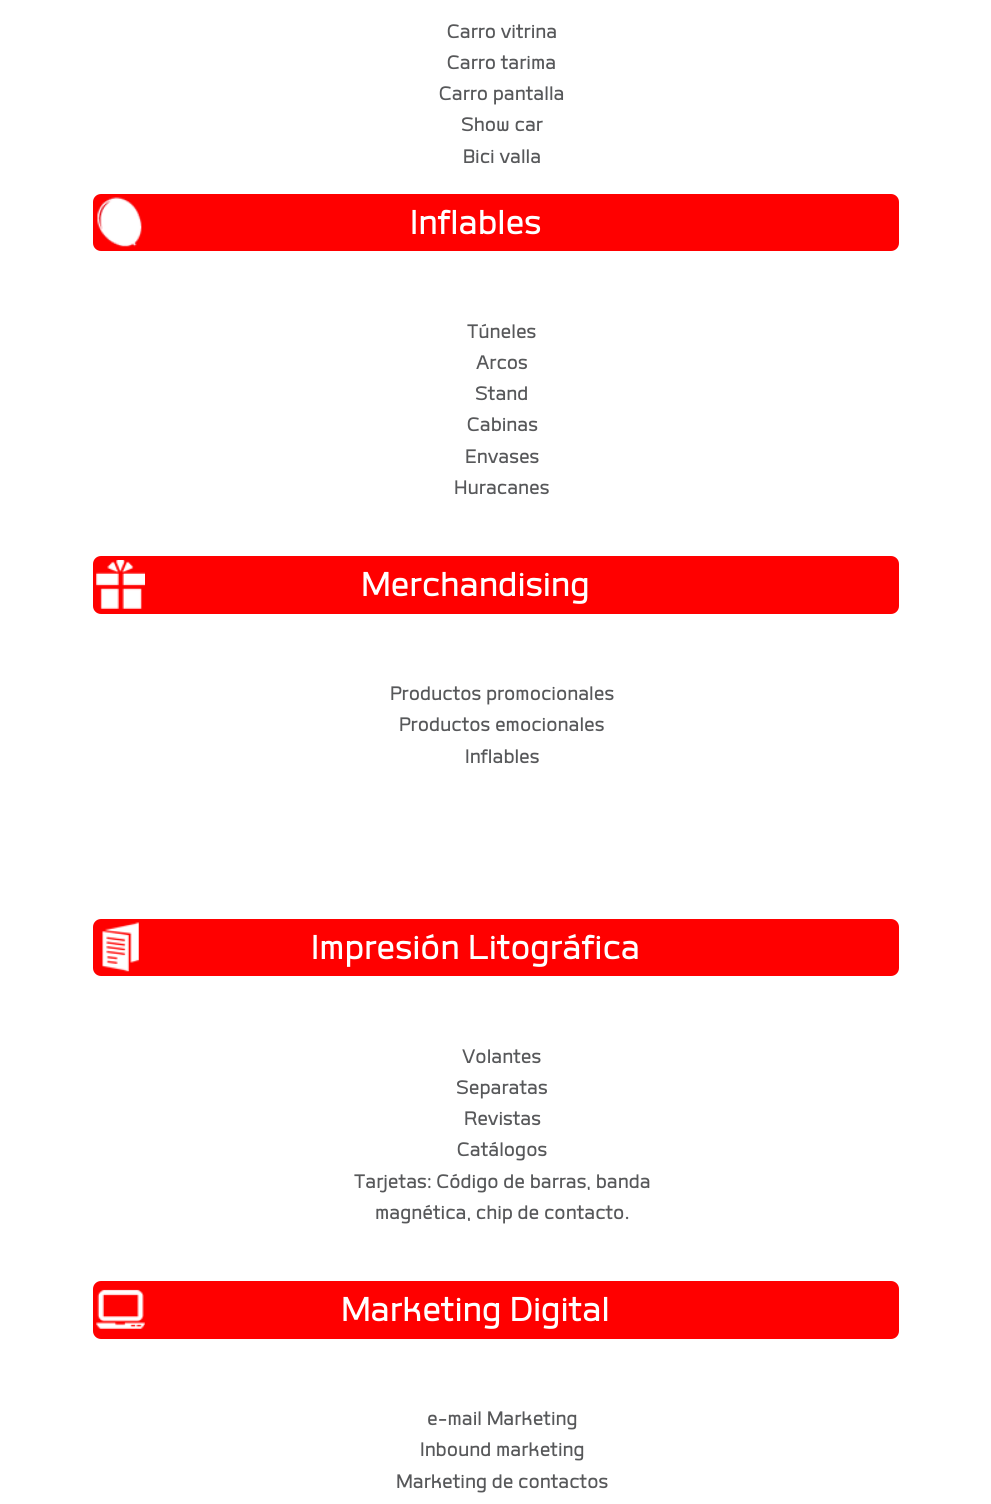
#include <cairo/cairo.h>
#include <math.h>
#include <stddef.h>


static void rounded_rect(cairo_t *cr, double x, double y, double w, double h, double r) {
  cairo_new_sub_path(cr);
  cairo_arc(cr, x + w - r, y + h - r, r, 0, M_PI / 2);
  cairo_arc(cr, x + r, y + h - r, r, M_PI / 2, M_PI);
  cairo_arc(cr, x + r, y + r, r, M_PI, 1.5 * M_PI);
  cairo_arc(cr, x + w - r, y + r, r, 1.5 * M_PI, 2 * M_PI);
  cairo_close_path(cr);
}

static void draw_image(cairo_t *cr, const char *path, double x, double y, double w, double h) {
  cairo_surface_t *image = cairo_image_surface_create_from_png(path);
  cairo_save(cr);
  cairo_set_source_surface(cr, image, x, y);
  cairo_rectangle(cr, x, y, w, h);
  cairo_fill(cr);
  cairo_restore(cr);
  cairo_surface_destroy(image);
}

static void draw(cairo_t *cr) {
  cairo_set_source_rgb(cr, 1, 1, 1);
  cairo_paint(cr);
  cairo_set_source_rgb(cr, 1, 0, 0);
  rounded_rect(cr, 93, 194, 806, 57, 8);
  cairo_fill(cr);
  draw_image(cr, "images/1.png", 97, 197, 45, 50);
  rounded_rect(cr, 93, 556, 806, 58, 8);
  cairo_fill(cr);
  draw_image(cr, "images/2.png", 96, 560, 49, 49);
  rounded_rect(cr, 93, 919, 806, 57, 8);
  cairo_fill(cr);
  draw_image(cr, "images/3.png", 102, 922, 37, 50);
  rounded_rect(cr, 93, 1281, 806, 58, 8);
  cairo_fill(cr);
  draw_image(cr, "images/4.png", 96, 1289, 49, 40);
  cairo_select_font_face(cr, "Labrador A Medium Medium", CAIRO_FONT_SLANT_NORMAL, CAIRO_FONT_WEIGHT_NORMAL);
  cairo_set_font_size(cr, 25.5);
  cairo_set_source_rgb(cr, 87 / 255.0, 88 / 255.0, 90 / 255.0);
  cairo_move_to(cr, 447, 38);
  cairo_show_text(cr, "Carro vitrina");
  cairo_move_to(cr, 447, 69);
  cairo_show_text(cr, "Carro tarima");
  cairo_move_to(cr, 439, 100);
  cairo_show_text(cr, "Carro pantalla");
  cairo_move_to(cr, 461, 131);
  cairo_show_text(cr, "Show car");
  cairo_move_to(cr, 463, 163);
  cairo_show_text(cr, "Bici valla");
  cairo_set_font_size(cr, 45);
  cairo_set_source_rgb(cr, 1, 1, 1);
  cairo_move_to(cr, 410, 234);
  cairo_show_text(cr, "Inflables");
  cairo_set_font_size(cr, 25.5);
  cairo_set_source_rgb(cr, 87 / 255.0, 88 / 255.0, 90 / 255.0);
  cairo_move_to(cr, 467, 338);
  cairo_show_text(cr, "Túneles");
  cairo_move_to(cr, 476, 369);
  cairo_show_text(cr, "Arcos");
  cairo_move_to(cr, 475, 400);
  cairo_show_text(cr, "Stand");
  cairo_move_to(cr, 467, 431);
  cairo_show_text(cr, "Cabinas");
  cairo_move_to(cr, 465, 463);
  cairo_show_text(cr, "Envases");
  cairo_move_to(cr, 454, 494);
  cairo_show_text(cr, "Huracanes");
  cairo_set_font_size(cr, 45);
  cairo_set_source_rgb(cr, 1, 1, 1);
  cairo_move_to(cr, 361, 596);
  cairo_show_text(cr, "Merchandising");
  cairo_set_font_size(cr, 25.5);
  cairo_set_source_rgb(cr, 87 / 255.0, 88 / 255.0, 90 / 255.0);
  cairo_move_to(cr, 390, 700);
  cairo_show_text(cr, "Productos promocionales");
  cairo_move_to(cr, 399, 731);
  cairo_show_text(cr, "Productos emocionales");
  cairo_move_to(cr, 465, 763);
  cairo_show_text(cr, "Inflables");
  cairo_set_font_size(cr, 45);
  cairo_set_source_rgb(cr, 1, 1, 1);
  cairo_move_to(cr, 311, 959);
  cairo_show_text(cr, "Impresión Litográfica");
  cairo_set_font_size(cr, 25.5);
  cairo_set_source_rgb(cr, 87 / 255.0, 88 / 255.0, 90 / 255.0);
  cairo_move_to(cr, 462, 1063);
  cairo_show_text(cr, "Volantes");
  cairo_move_to(cr, 456, 1094);
  cairo_show_text(cr, "Separatas");
  cairo_move_to(cr, 464, 1125);
  cairo_show_text(cr, "Revistas");
  cairo_move_to(cr, 457, 1156);
  cairo_show_text(cr, "Catálogos");
  cairo_move_to(cr, 354, 1188);
  cairo_show_text(cr, "Tarjetas: Código de barras, banda");
  cairo_move_to(cr, 375, 1219);
  cairo_show_text(cr, "magnética, chip de contacto.");
  cairo_set_font_size(cr, 45);
  cairo_set_source_rgb(cr, 1, 1, 1);
  cairo_move_to(cr, 341, 1321);
  cairo_show_text(cr, "Marketing Digital");
  cairo_set_font_size(cr, 25.5);
  cairo_set_source_rgb(cr, 87 / 255.0, 88 / 255.0, 90 / 255.0);
  cairo_move_to(cr, 427, 1425);
  cairo_show_text(cr, "e-mail Marketing");
  cairo_move_to(cr, 420, 1456);
  cairo_show_text(cr, "Inbound marketing");
  cairo_move_to(cr, 396, 1488);
  cairo_show_text(cr, "Marketing de contactos");
}

int main(void) {
  cairo_surface_t *surface = cairo_image_surface_create(CAIRO_FORMAT_RGB24, 991, 1504);
  cairo_t *cr = cairo_create(surface);
  cairo_font_options_t *options = cairo_font_options_create();
  cairo_font_options_set_hint_metrics(options, CAIRO_HINT_METRICS_OFF);
  cairo_font_options_set_hint_style(options, CAIRO_HINT_STYLE_NONE);
  cairo_set_font_options(cr, options);
  cairo_set_miter_limit(cr, 4);
  draw(cr);
  cairo_surface_write_to_png(surface, "out.png");
  cairo_font_options_destroy(options);
  cairo_destroy(cr);
  cairo_surface_destroy(surface);
  return 0;
}
